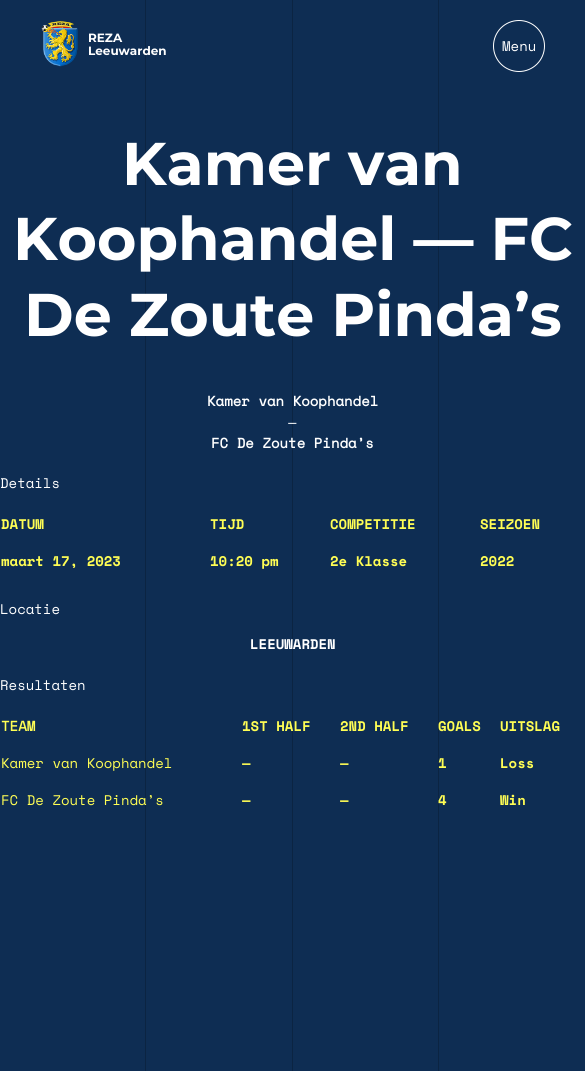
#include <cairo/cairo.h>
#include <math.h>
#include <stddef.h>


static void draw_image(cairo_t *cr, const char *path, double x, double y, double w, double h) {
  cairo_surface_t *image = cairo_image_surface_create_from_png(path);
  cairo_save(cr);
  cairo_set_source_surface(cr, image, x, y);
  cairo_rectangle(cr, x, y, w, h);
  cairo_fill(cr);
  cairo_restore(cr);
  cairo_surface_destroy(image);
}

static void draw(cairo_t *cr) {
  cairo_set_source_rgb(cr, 14 / 255.0, 45 / 255.0, 83 / 255.0);
  cairo_paint(cr);
  cairo_set_source_rgb(cr, 11 / 255.0, 36 / 255.0, 66 / 255.0);
  cairo_rectangle(cr, 145, 0, 1, 1071);
  cairo_fill(cr);
  cairo_rectangle(cr, 292, 0, 1, 1071);
  cairo_fill(cr);
  cairo_rectangle(cr, 438, 0, 1, 1071);
  cairo_fill(cr);
  draw_image(cr, "images/1.png", 41, 20, 37, 47);
  cairo_arc(cr, 519, 46, 25.5, 0, 2 * M_PI);
  cairo_set_source_rgb(cr, 1, 1, 1);
  cairo_set_line_width(cr, 1);
  cairo_stroke(cr);
  cairo_select_font_face(cr, "Montserrat", CAIRO_FONT_SLANT_NORMAL, CAIRO_FONT_WEIGHT_BOLD);
  cairo_set_font_size(cr, 12);
  cairo_move_to(cr, 88, 42);
  cairo_show_text(cr, "REZA");
  cairo_move_to(cr, 88, 55);
  cairo_show_text(cr, "Leeuwarden");
  cairo_select_font_face(cr, "Space Mono", CAIRO_FONT_SLANT_NORMAL, CAIRO_FONT_WEIGHT_NORMAL);
  cairo_set_font_size(cr, 14);
  cairo_move_to(cr, 502, 51);
  cairo_show_text(cr, "Menu");
  cairo_select_font_face(cr, "Montserrat", CAIRO_FONT_SLANT_NORMAL, CAIRO_FONT_WEIGHT_BOLD);
  cairo_set_font_size(cr, 60.25);
  cairo_move_to(cr, 122, 185);
  cairo_show_text(cr, "Kamer van");
  cairo_move_to(cr, 13, 260);
  cairo_show_text(cr, "Koophandel — FC");
  cairo_move_to(cr, 24, 336);
  cairo_show_text(cr, "De Zoute Pinda’s");
  cairo_select_font_face(cr, "Space Mono", CAIRO_FONT_SLANT_NORMAL, CAIRO_FONT_WEIGHT_BOLD);
  cairo_set_font_size(cr, 14);
  cairo_move_to(cr, 207, 406);
  cairo_show_text(cr, "Kamer van Koophandel");
  cairo_select_font_face(cr, "Space Mono", CAIRO_FONT_SLANT_NORMAL, CAIRO_FONT_WEIGHT_NORMAL);
  cairo_move_to(cr, 288, 427);
  cairo_show_text(cr, "—");
  cairo_select_font_face(cr, "Space Mono", CAIRO_FONT_SLANT_NORMAL, CAIRO_FONT_WEIGHT_BOLD);
  cairo_move_to(cr, 211, 448);
  cairo_show_text(cr, "FC De Zoute Pinda’s");
  cairo_select_font_face(cr, "Space Mono", CAIRO_FONT_SLANT_NORMAL, CAIRO_FONT_WEIGHT_NORMAL);
  cairo_move_to(cr, 0, 488);
  cairo_show_text(cr, "Details");
  cairo_select_font_face(cr, "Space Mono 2", CAIRO_FONT_SLANT_NORMAL, CAIRO_FONT_WEIGHT_BOLD);
  cairo_set_source_rgb(cr, 1, 254 / 255.0, 84 / 255.0);
  cairo_move_to(cr, 1, 529);
  cairo_show_text(cr, "DATUM");
  cairo_move_to(cr, 210, 529);
  cairo_show_text(cr, "TIJD");
  cairo_move_to(cr, 330, 529);
  cairo_show_text(cr, "COMPETITIE");
  cairo_move_to(cr, 480, 529);
  cairo_show_text(cr, "SEIZOEN");
  cairo_move_to(cr, 1, 566);
  cairo_show_text(cr, "maart 17, 2023");
  cairo_move_to(cr, 210, 566);
  cairo_show_text(cr, "10:20 pm");
  cairo_move_to(cr, 330, 566);
  cairo_show_text(cr, "2e Klasse");
  cairo_move_to(cr, 480, 566);
  cairo_show_text(cr, "2022");
  cairo_select_font_face(cr, "Space Mono", CAIRO_FONT_SLANT_NORMAL, CAIRO_FONT_WEIGHT_NORMAL);
  cairo_set_source_rgb(cr, 1, 1, 1);
  cairo_move_to(cr, 0, 614);
  cairo_show_text(cr, "Locatie");
  cairo_select_font_face(cr, "Space Mono 2", CAIRO_FONT_SLANT_NORMAL, CAIRO_FONT_WEIGHT_BOLD);
  cairo_move_to(cr, 250, 649);
  cairo_show_text(cr, "LEEUWARDEN");
  cairo_select_font_face(cr, "Space Mono", CAIRO_FONT_SLANT_NORMAL, CAIRO_FONT_WEIGHT_NORMAL);
  cairo_move_to(cr, 0, 690);
  cairo_show_text(cr, "Resultaten");
  cairo_select_font_face(cr, "Space Mono", CAIRO_FONT_SLANT_NORMAL, CAIRO_FONT_WEIGHT_BOLD);
  cairo_set_source_rgb(cr, 1, 254 / 255.0, 84 / 255.0);
  cairo_move_to(cr, 1, 731);
  cairo_show_text(cr, "TEAM");
  cairo_select_font_face(cr, "Space Mono 2", CAIRO_FONT_SLANT_NORMAL, CAIRO_FONT_WEIGHT_BOLD);
  cairo_move_to(cr, 242, 731);
  cairo_show_text(cr, "1ST HALF");
  cairo_move_to(cr, 340, 731);
  cairo_show_text(cr, "2ND HALF");
  cairo_move_to(cr, 438, 731);
  cairo_show_text(cr, "GOALS");
  cairo_move_to(cr, 500, 731);
  cairo_show_text(cr, "UITSLAG");
  cairo_select_font_face(cr, "Space Mono", CAIRO_FONT_SLANT_NORMAL, CAIRO_FONT_WEIGHT_NORMAL);
  cairo_move_to(cr, 1, 768);
  cairo_show_text(cr, "Kamer van Koophandel");
  cairo_select_font_face(cr, "Space Mono 2", CAIRO_FONT_SLANT_NORMAL, CAIRO_FONT_WEIGHT_BOLD);
  cairo_move_to(cr, 242, 768);
  cairo_show_text(cr, "—");
  cairo_move_to(cr, 340, 768);
  cairo_show_text(cr, "—");
  cairo_move_to(cr, 438, 768);
  cairo_show_text(cr, "1");
  cairo_move_to(cr, 500, 768);
  cairo_show_text(cr, "Loss");
  cairo_select_font_face(cr, "Space Mono", CAIRO_FONT_SLANT_NORMAL, CAIRO_FONT_WEIGHT_NORMAL);
  cairo_move_to(cr, 1, 805);
  cairo_show_text(cr, "FC De Zoute Pinda’s");
  cairo_select_font_face(cr, "Space Mono 2", CAIRO_FONT_SLANT_NORMAL, CAIRO_FONT_WEIGHT_BOLD);
  cairo_move_to(cr, 242, 805);
  cairo_show_text(cr, "—");
  cairo_move_to(cr, 340, 805);
  cairo_show_text(cr, "—");
  cairo_move_to(cr, 438, 805);
  cairo_show_text(cr, "4");
  cairo_move_to(cr, 500, 805);
  cairo_show_text(cr, "Win");
}

int main(void) {
  cairo_surface_t *surface = cairo_image_surface_create(CAIRO_FORMAT_RGB24, 585, 1071);
  cairo_t *cr = cairo_create(surface);
  cairo_font_options_t *options = cairo_font_options_create();
  cairo_font_options_set_hint_metrics(options, CAIRO_HINT_METRICS_OFF);
  cairo_font_options_set_hint_style(options, CAIRO_HINT_STYLE_NONE);
  cairo_set_font_options(cr, options);
  cairo_set_miter_limit(cr, 4);
  draw(cr);
  cairo_surface_write_to_png(surface, "out.png");
  cairo_font_options_destroy(options);
  cairo_destroy(cr);
  cairo_surface_destroy(surface);
  return 0;
}
